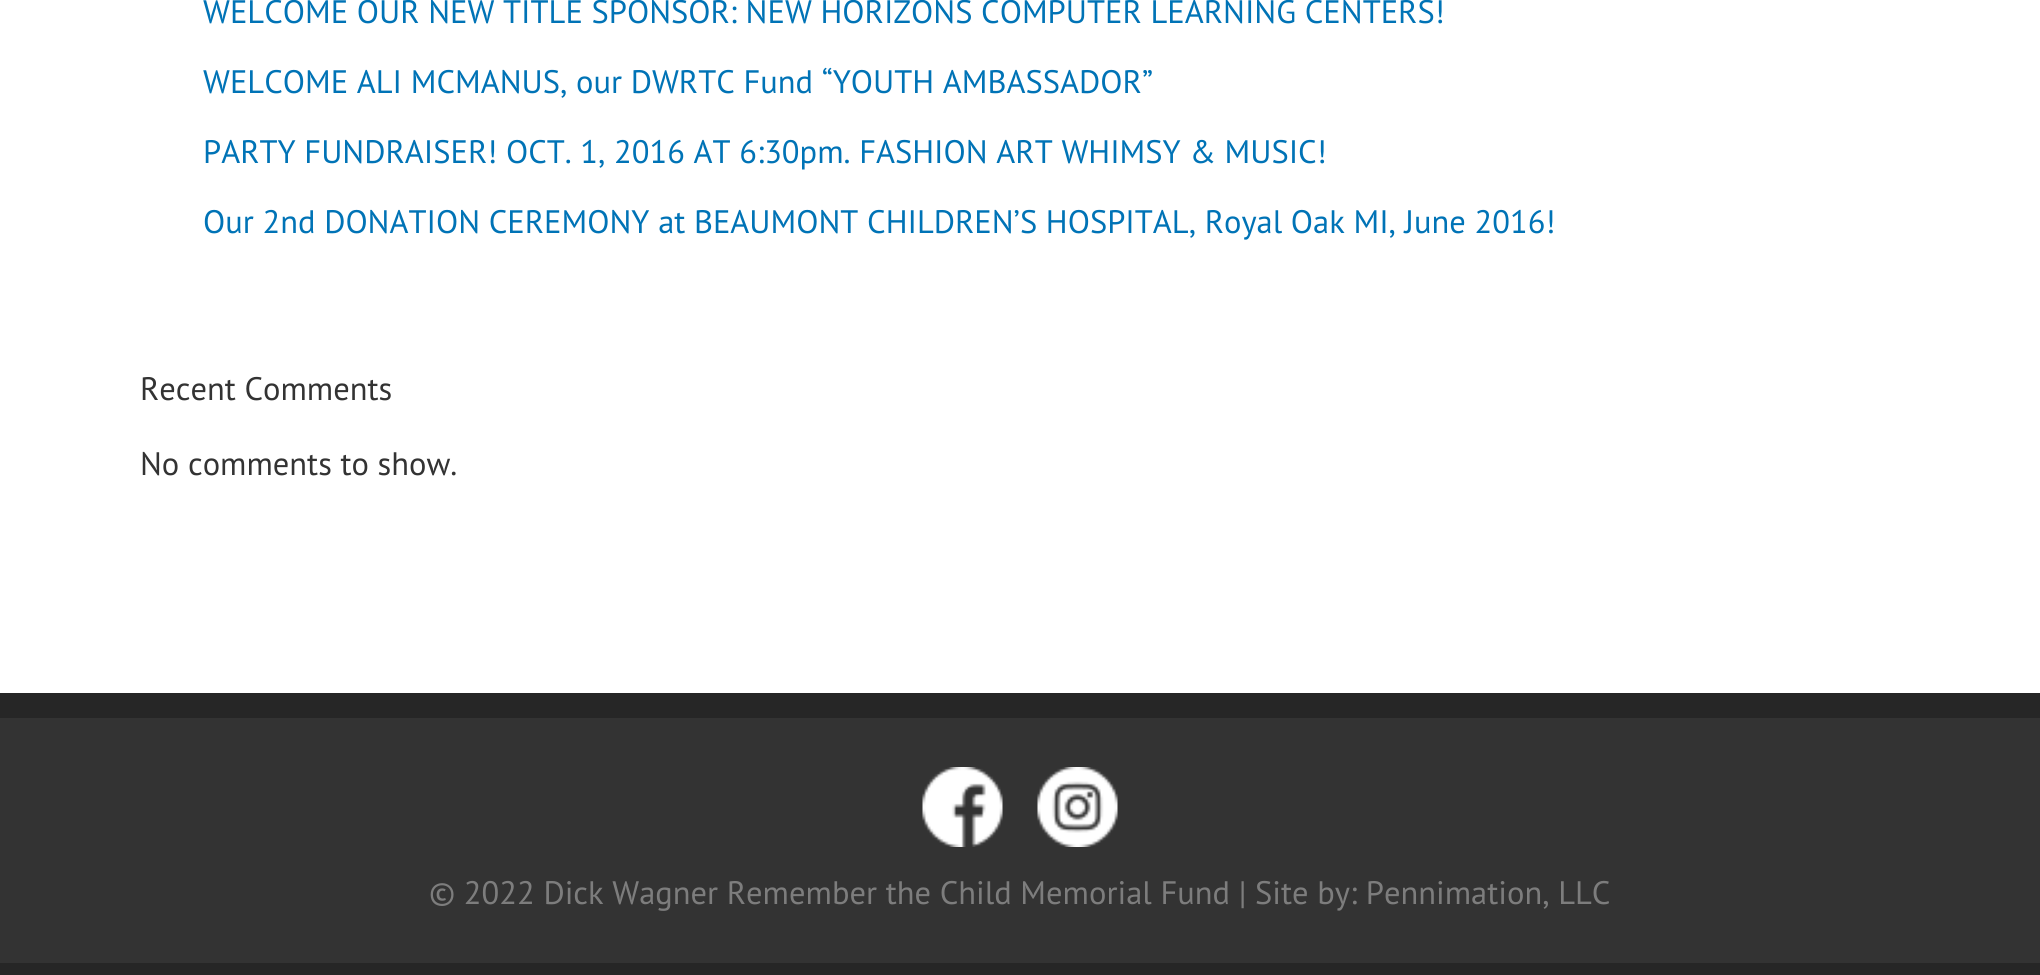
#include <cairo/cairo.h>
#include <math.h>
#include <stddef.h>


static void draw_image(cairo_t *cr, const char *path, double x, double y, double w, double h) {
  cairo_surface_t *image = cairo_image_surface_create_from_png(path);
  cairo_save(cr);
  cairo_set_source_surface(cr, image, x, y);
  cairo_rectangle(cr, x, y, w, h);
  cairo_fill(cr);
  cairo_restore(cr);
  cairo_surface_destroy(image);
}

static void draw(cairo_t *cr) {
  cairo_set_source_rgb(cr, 1, 1, 1);
  cairo_paint(cr);
  cairo_set_source_rgb(cr, 51 / 255.0, 51 / 255.0, 51 / 255.0);
  cairo_rectangle(cr, 0, 718, 2040, 245);
  cairo_fill(cr);
  cairo_set_source_rgb(cr, 38 / 255.0, 38 / 255.0, 38 / 255.0);
  cairo_rectangle(cr, 0, 693, 2040, 25);
  cairo_fill(cr);
  cairo_rectangle(cr, 0, 963, 2040, 12);
  cairo_fill(cr);
  draw_image(cr, "images/1.png", 922, 767, 81, 80);
  draw_image(cr, "images/2.png", 1037, 767, 81, 80);
  cairo_select_font_face(cr, "PT Sans", CAIRO_FONT_SLANT_NORMAL, CAIRO_FONT_WEIGHT_NORMAL);
  cairo_set_font_size(cr, 32.5);
  cairo_set_source_rgb(cr, 0, 115 / 255.0, 182 / 255.0);
  cairo_move_to(cr, 203, 23);
  cairo_show_text(cr, "WELCOME OUR NEW TITLE SPONSOR: NEW HORIZONS COMPUTER LEARNING CENTERS!");
  cairo_move_to(cr, 203, 93);
  cairo_show_text(cr, "WELCOME ALI MCMANUS, our DWRTC Fund “YOUTH AMBASSADOR”");
  cairo_move_to(cr, 203, 163);
  cairo_show_text(cr, "PARTY FUNDRAISER! OCT. 1, 2016 AT 6:30pm. FASHION ART WHIMSY & MUSIC!");
  cairo_move_to(cr, 203, 233);
  cairo_show_text(cr, "Our 2nd DONATION CEREMONY at BEAUMONT CHILDREN’S HOSPITAL, Royal Oak MI, June 2016!");
  cairo_set_source_rgb(cr, 51 / 255.0, 51 / 255.0, 51 / 255.0);
  cairo_move_to(cr, 140, 400);
  cairo_show_text(cr, "Recent Comments");
  cairo_move_to(cr, 140, 475);
  cairo_show_text(cr, "No comments to show.");
  cairo_set_source_rgb(cr, 125 / 255.0, 125 / 255.0, 125 / 255.0);
  cairo_move_to(cr, 429, 904);
  cairo_show_text(cr, "© 2022 Dick Wagner Remember the Child Memorial Fund | Site by: Pennimation, LLC");
}

int main(void) {
  cairo_surface_t *surface = cairo_image_surface_create(CAIRO_FORMAT_RGB24, 2040, 975);
  cairo_t *cr = cairo_create(surface);
  cairo_font_options_t *options = cairo_font_options_create();
  cairo_font_options_set_hint_metrics(options, CAIRO_HINT_METRICS_OFF);
  cairo_font_options_set_hint_style(options, CAIRO_HINT_STYLE_NONE);
  cairo_set_font_options(cr, options);
  cairo_set_miter_limit(cr, 4);
  draw(cr);
  cairo_surface_write_to_png(surface, "out.png");
  cairo_font_options_destroy(options);
  cairo_destroy(cr);
  cairo_surface_destroy(surface);
  return 0;
}
